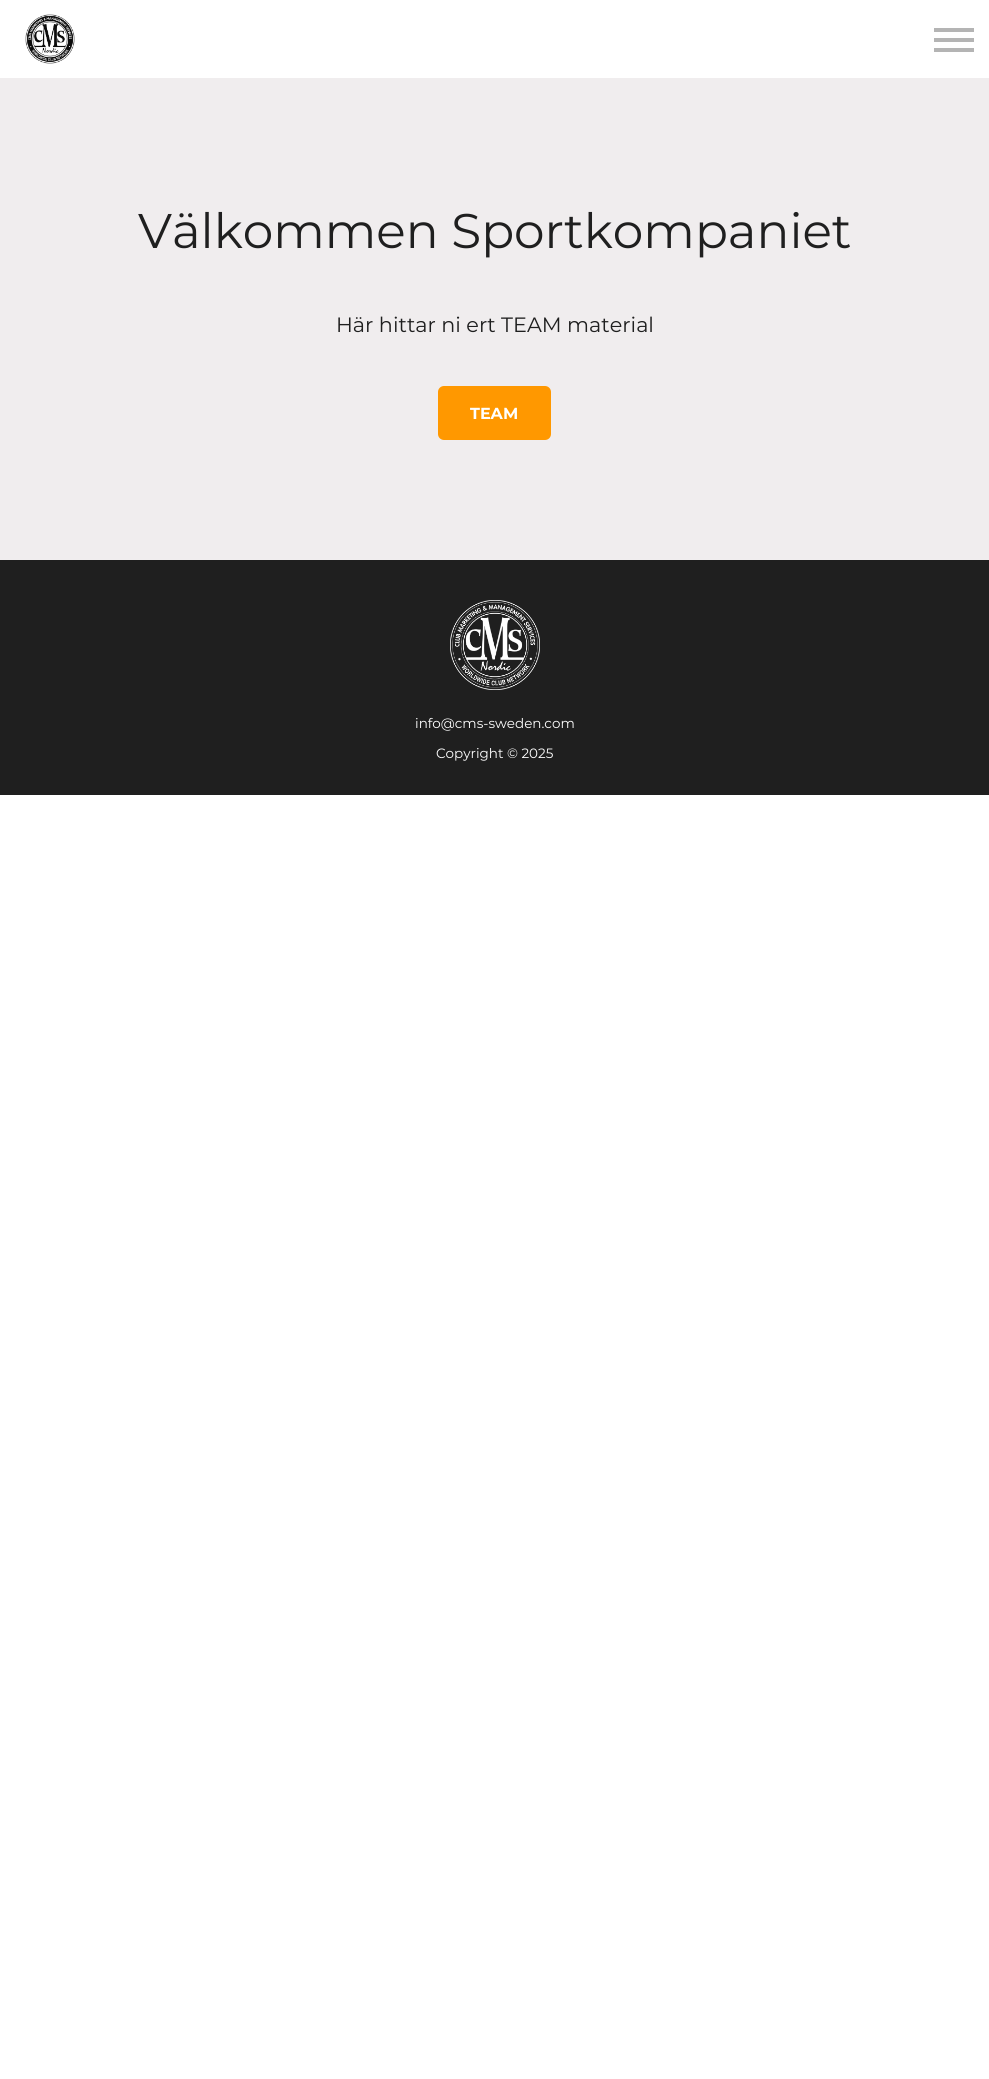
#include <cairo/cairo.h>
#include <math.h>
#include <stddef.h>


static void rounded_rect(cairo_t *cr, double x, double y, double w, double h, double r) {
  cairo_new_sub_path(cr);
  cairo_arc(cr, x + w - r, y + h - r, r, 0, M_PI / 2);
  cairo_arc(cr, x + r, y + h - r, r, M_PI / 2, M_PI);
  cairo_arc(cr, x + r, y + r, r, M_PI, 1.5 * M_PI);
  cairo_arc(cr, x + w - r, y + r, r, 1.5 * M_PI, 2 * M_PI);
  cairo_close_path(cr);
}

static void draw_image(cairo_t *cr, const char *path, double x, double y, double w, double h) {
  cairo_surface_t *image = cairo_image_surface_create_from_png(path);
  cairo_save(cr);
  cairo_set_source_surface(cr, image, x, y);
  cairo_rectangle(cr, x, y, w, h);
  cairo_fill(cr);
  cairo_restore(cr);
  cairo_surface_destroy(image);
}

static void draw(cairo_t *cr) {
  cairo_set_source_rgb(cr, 1, 1, 1);
  cairo_paint(cr);
  draw_image(cr, "images/1.png", 25, 14, 50, 50);
  cairo_set_source_rgb(cr, 180 / 255.0, 180 / 255.0, 180 / 255.0);
  cairo_rectangle(cr, 934, 48, 40, 4);
  cairo_fill(cr);
  cairo_rectangle(cr, 934, 28, 40, 4);
  cairo_fill(cr);
  cairo_rectangle(cr, 934, 38, 40, 4);
  cairo_fill(cr);
  cairo_set_source_rgb(cr, 240 / 255.0, 237 / 255.0, 238 / 255.0);
  cairo_rectangle(cr, 0, 78, 989, 482);
  cairo_fill(cr);
  cairo_set_source_rgb(cr, 1, 152 / 255.0, 0);
  rounded_rect(cr, 438, 386, 113, 54, 6);
  cairo_fill(cr);
  cairo_set_source_rgb(cr, 31 / 255.0, 31 / 255.0, 31 / 255.0);
  cairo_rectangle(cr, 0, 560, 989, 235);
  cairo_fill(cr);
  draw_image(cr, "images/2.png", 450, 600, 90, 90);
  cairo_select_font_face(cr, "Montserrat", CAIRO_FONT_SLANT_NORMAL, CAIRO_FONT_WEIGHT_NORMAL);
  cairo_set_font_size(cr, 48.6);
  cairo_move_to(cr, 138, 248);
  cairo_show_text(cr, "Välkommen Sportkompaniet");
  cairo_set_font_size(cr, 20.75);
  cairo_move_to(cr, 336, 332);
  cairo_show_text(cr, "Här hittar ni ert TEAM material");
  cairo_select_font_face(cr, "Montserrat", CAIRO_FONT_SLANT_NORMAL, CAIRO_FONT_WEIGHT_BOLD);
  cairo_set_font_size(cr, 16);
  cairo_set_source_rgb(cr, 1, 1, 1);
  cairo_move_to(cr, 470, 419);
  cairo_show_text(cr, "TEAM");
  cairo_select_font_face(cr, "Montserrat", CAIRO_FONT_SLANT_NORMAL, CAIRO_FONT_WEIGHT_NORMAL);
  cairo_set_font_size(cr, 13.5);
  cairo_move_to(cr, 415, 728);
  cairo_show_text(cr, "info@cms-sweden.com");
  cairo_move_to(cr, 436, 758);
  cairo_show_text(cr, "Copyright © 2025");
}

int main(void) {
  cairo_surface_t *surface = cairo_image_surface_create(CAIRO_FORMAT_RGB24, 989, 2079);
  cairo_t *cr = cairo_create(surface);
  cairo_font_options_t *options = cairo_font_options_create();
  cairo_font_options_set_hint_metrics(options, CAIRO_HINT_METRICS_OFF);
  cairo_font_options_set_hint_style(options, CAIRO_HINT_STYLE_NONE);
  cairo_set_font_options(cr, options);
  cairo_set_miter_limit(cr, 4);
  draw(cr);
  cairo_surface_write_to_png(surface, "out.png");
  cairo_font_options_destroy(options);
  cairo_destroy(cr);
  cairo_surface_destroy(surface);
  return 0;
}
